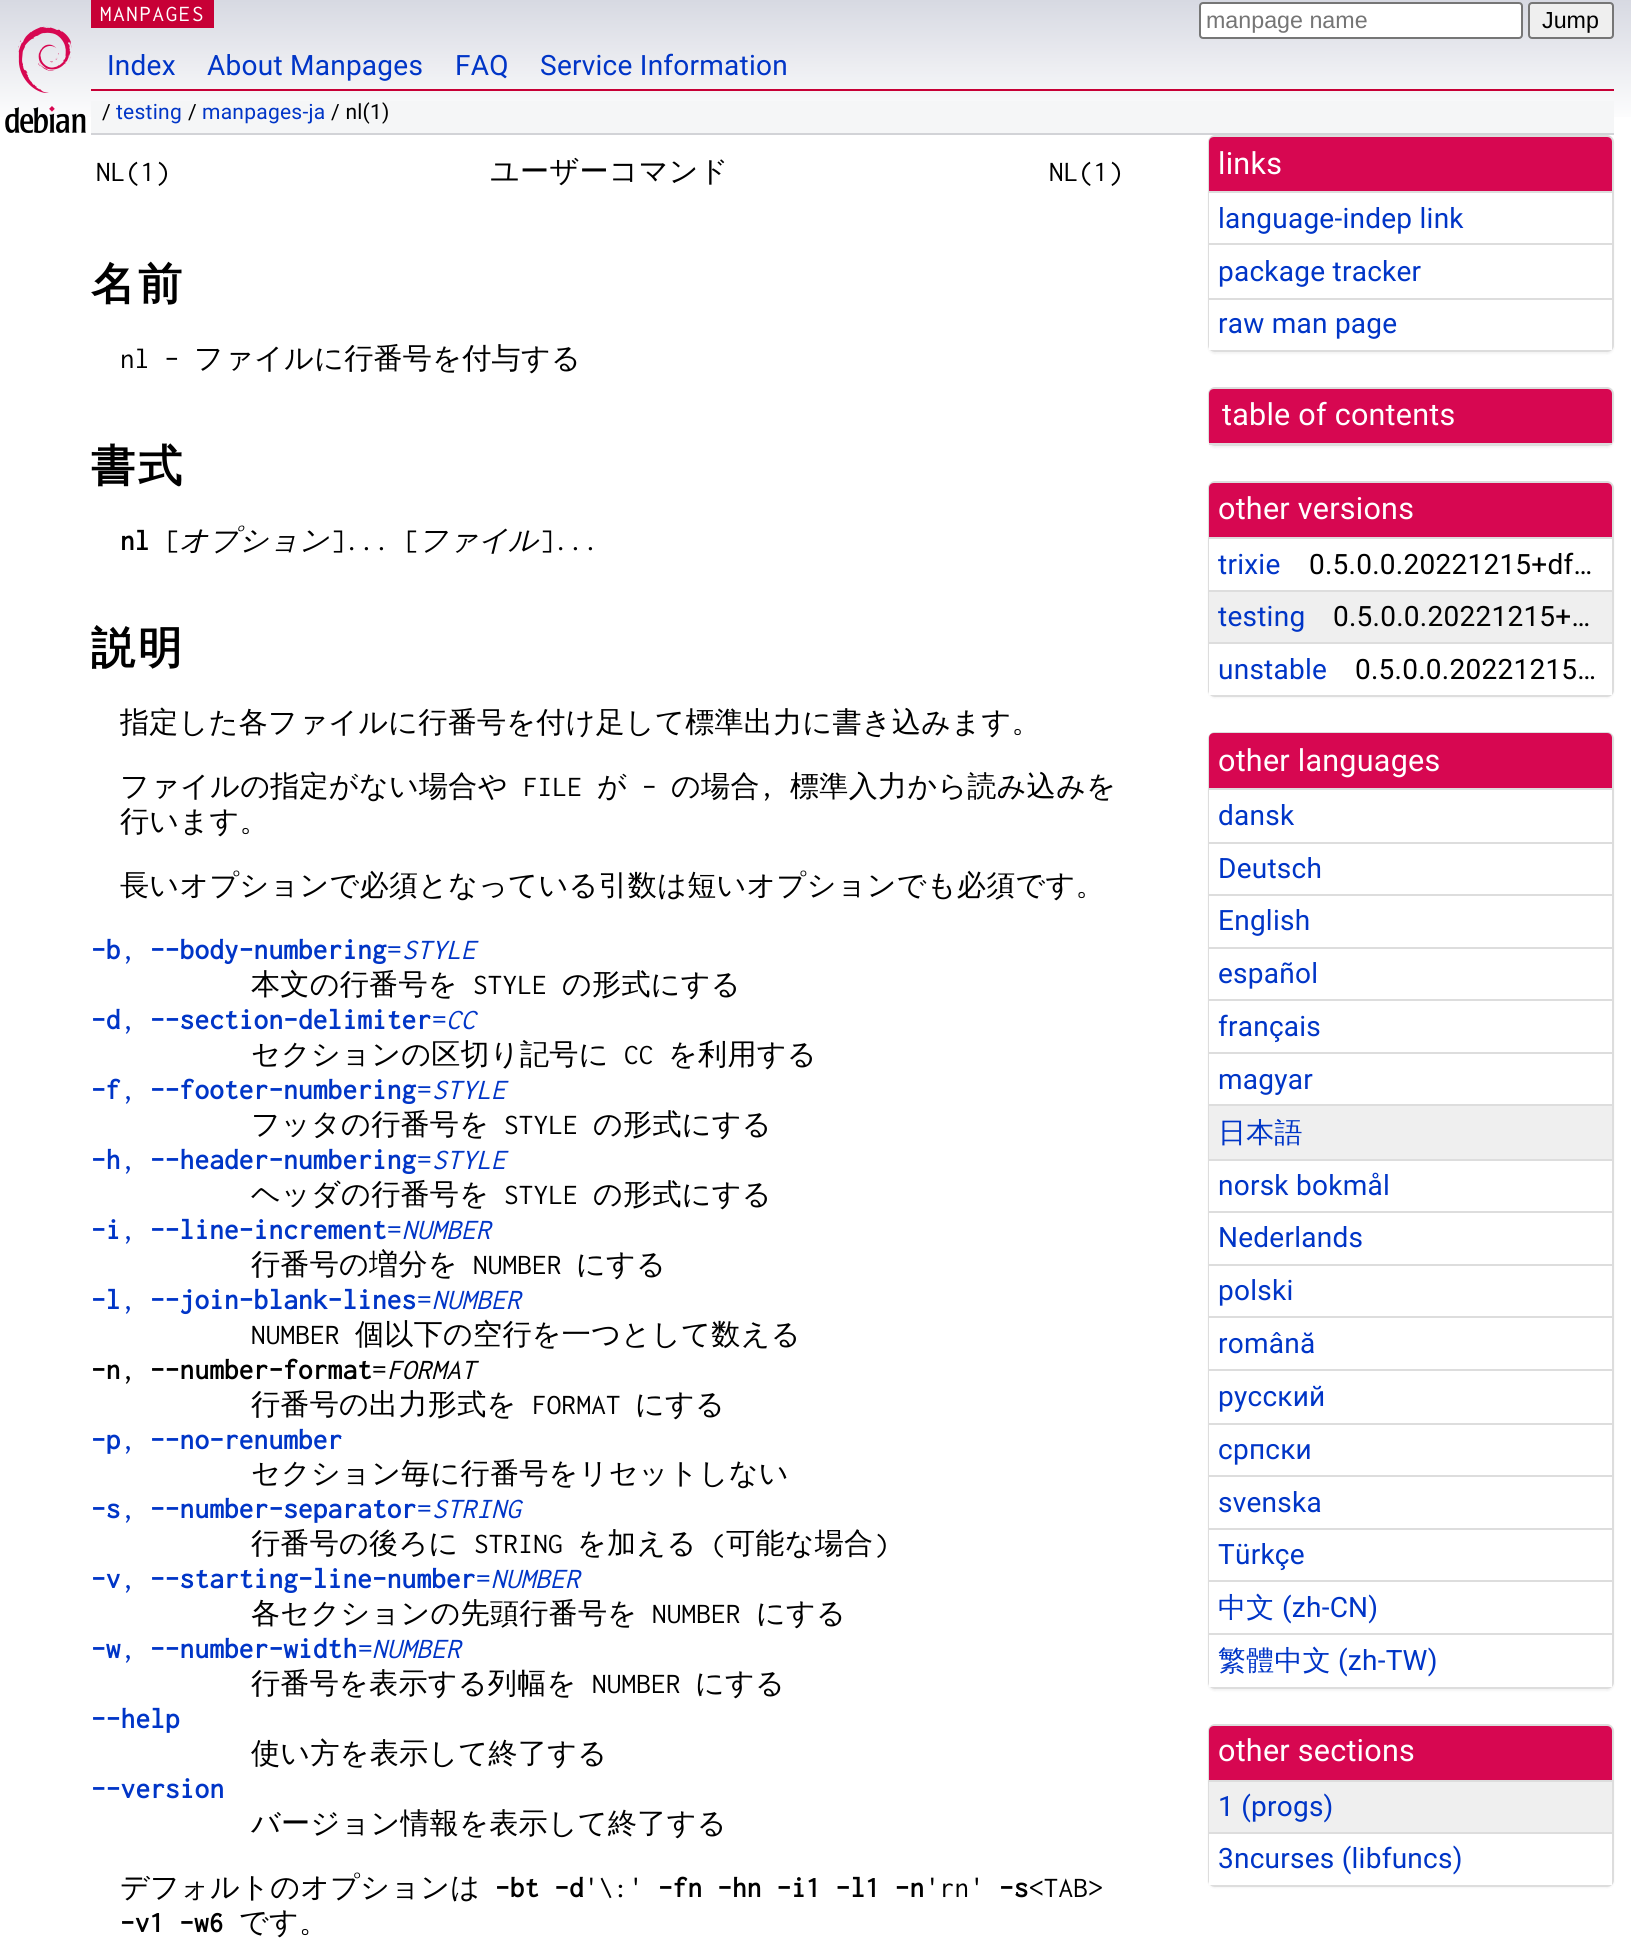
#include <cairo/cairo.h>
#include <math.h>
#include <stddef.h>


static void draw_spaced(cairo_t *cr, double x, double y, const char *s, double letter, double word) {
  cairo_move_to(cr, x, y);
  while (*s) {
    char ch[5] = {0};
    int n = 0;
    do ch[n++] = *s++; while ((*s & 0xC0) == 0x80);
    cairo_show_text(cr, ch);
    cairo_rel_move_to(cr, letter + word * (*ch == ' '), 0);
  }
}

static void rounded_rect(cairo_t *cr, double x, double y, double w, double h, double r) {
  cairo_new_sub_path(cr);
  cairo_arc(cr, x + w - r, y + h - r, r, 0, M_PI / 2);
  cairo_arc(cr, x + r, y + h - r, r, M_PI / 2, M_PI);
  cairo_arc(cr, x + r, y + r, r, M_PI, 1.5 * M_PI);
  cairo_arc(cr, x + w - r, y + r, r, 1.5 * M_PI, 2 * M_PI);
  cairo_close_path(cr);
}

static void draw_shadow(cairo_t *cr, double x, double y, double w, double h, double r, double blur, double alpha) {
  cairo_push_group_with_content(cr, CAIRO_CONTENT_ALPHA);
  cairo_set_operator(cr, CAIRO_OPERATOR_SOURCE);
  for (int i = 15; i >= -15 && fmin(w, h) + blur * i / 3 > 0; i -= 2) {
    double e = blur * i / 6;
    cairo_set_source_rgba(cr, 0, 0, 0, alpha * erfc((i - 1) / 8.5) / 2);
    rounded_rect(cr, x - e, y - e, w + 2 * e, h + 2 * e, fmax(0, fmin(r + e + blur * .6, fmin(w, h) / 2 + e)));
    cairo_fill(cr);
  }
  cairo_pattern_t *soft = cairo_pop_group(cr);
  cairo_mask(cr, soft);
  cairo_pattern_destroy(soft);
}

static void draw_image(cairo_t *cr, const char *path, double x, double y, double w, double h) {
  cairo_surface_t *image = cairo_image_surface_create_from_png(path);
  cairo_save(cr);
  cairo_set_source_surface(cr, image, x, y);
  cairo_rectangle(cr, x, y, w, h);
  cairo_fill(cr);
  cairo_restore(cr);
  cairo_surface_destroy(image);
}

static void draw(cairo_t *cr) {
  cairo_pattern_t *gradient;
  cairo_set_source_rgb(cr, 1, 1, 1);
  cairo_paint(cr);
  gradient = cairo_pattern_create_linear(815, 0, 816, 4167);
  cairo_pattern_add_color_stop_rgba(gradient, 0, 215 / 255.0, 217 / 255.0, 226 / 255.0, 1);
  cairo_pattern_add_color_stop_rgba(gradient, 0.03, 1, 1, 1, 1);
  cairo_set_source(cr, gradient);
  cairo_pattern_destroy(gradient);
  cairo_rectangle(cr, 0, 0, 1631, 117);
  cairo_fill(cr);
  cairo_set_source_rgb(cr, 199 / 255.0, 0, 54 / 255.0);
  cairo_rectangle(cr, 91, 0, 123, 28);
  cairo_fill(cr);
  cairo_set_source_rgb(cr, 1, 1, 1);
  rounded_rect(cr, 1200, 3, 322, 35, 3);
  cairo_fill_preserve(cr);
  cairo_set_source_rgb(cr, 118 / 255.0, 118 / 255.0, 118 / 255.0);
  cairo_stroke(cr);
  cairo_set_source_rgb(cr, 239 / 255.0, 239 / 255.0, 239 / 255.0);
  rounded_rect(cr, 1529, 3, 84, 35, 3);
  cairo_fill_preserve(cr);
  cairo_set_source_rgb(cr, 118 / 255.0, 118 / 255.0, 118 / 255.0);
  cairo_stroke(cr);
  draw_image(cr, "images/1.png", 5, 26, 81, 107);
  cairo_set_source_rgb(cr, 199 / 255.0, 0, 54 / 255.0);
  cairo_rectangle(cr, 91, 89, 1523, 2);
  cairo_fill(cr);
  cairo_set_source_rgb(cr, 245 / 255.0, 246 / 255.0, 247 / 255.0);
  cairo_rectangle(cr, 91, 101, 1523, 32);
  cairo_fill(cr);
  cairo_set_source_rgb(cr, 210 / 255.0, 211 / 255.0, 215 / 255.0);
  cairo_rectangle(cr, 91, 133, 1523, 2);
  cairo_fill(cr);
  cairo_set_source_rgb(cr, 0, 0, 0);
  draw_shadow(cr, 1208, 137, 406, 217, 7, 1, 0.05);
  rounded_rect(cr, 1209, 136, 404, 215, 6);
  cairo_set_source_rgb(cr, 221 / 255.0, 221 / 255.0, 221 / 255.0);
  cairo_stroke(cr);
  cairo_set_source_rgb(cr, 215 / 255.0, 7 / 255.0, 81 / 255.0);
  cairo_new_path(cr);
  cairo_move_to(cr, 1214, 137);
  cairo_line_to(cr, 1607, 137);
  cairo_curve_to(cr, 1610, 137, 1612, 139, 1612, 142);
  cairo_line_to(cr, 1612, 193);
  cairo_line_to(cr, 1209, 193);
  cairo_line_to(cr, 1209, 142);
  cairo_curve_to(cr, 1209, 139, 1211, 137, 1214, 137);
  cairo_close_path(cr);
  cairo_fill(cr);
  cairo_set_source_rgb(cr, 1, 1, 1);
  cairo_rectangle(cr, 1209, 193, 403, 157);
  cairo_fill(cr);
  cairo_set_source_rgb(cr, 221 / 255.0, 221 / 255.0, 221 / 255.0);
  cairo_rectangle(cr, 1209, 191, 403, 2);
  cairo_fill(cr);
  cairo_rectangle(cr, 1209, 243, 403, 2);
  cairo_fill(cr);
  cairo_rectangle(cr, 1209, 298, 403, 2);
  cairo_fill(cr);
  cairo_set_source_rgb(cr, 0, 0, 0);
  draw_shadow(cr, 1208, 389, 406, 59, 7, 1, 0.05);
  rounded_rect(cr, 1209, 388, 404, 57, 6);
  cairo_set_source_rgb(cr, 221 / 255.0, 221 / 255.0, 221 / 255.0);
  cairo_stroke(cr);
  cairo_set_source_rgb(cr, 215 / 255.0, 7 / 255.0, 81 / 255.0);
  cairo_new_path(cr);
  cairo_move_to(cr, 1214, 389);
  cairo_line_to(cr, 1607, 389);
  cairo_curve_to(cr, 1610, 389, 1612, 391, 1612, 394);
  cairo_line_to(cr, 1612, 445);
  cairo_line_to(cr, 1209, 445);
  cairo_line_to(cr, 1209, 394);
  cairo_curve_to(cr, 1209, 391, 1211, 389, 1214, 389);
  cairo_close_path(cr);
  cairo_fill(cr);
  cairo_set_source_rgb(cr, 221 / 255.0, 221 / 255.0, 221 / 255.0);
  cairo_rectangle(cr, 1209, 443, 403, 2);
  cairo_fill(cr);
  cairo_set_source_rgb(cr, 0, 0, 0);
  draw_shadow(cr, 1208, 483, 406, 215, 7, 1, 0.05);
  rounded_rect(cr, 1209, 482, 404, 214, 6);
  cairo_set_source_rgb(cr, 221 / 255.0, 221 / 255.0, 221 / 255.0);
  cairo_stroke(cr);
  cairo_set_source_rgb(cr, 215 / 255.0, 7 / 255.0, 81 / 255.0);
  cairo_new_path(cr);
  cairo_move_to(cr, 1214, 483);
  cairo_line_to(cr, 1607, 483);
  cairo_curve_to(cr, 1610, 483, 1612, 485, 1612, 488);
  cairo_line_to(cr, 1612, 539);
  cairo_line_to(cr, 1209, 539);
  cairo_line_to(cr, 1209, 488);
  cairo_curve_to(cr, 1209, 485, 1211, 483, 1214, 483);
  cairo_close_path(cr);
  cairo_fill(cr);
  cairo_set_source_rgb(cr, 1, 1, 1);
  cairo_rectangle(cr, 1209, 539, 403, 156);
  cairo_fill(cr);
  cairo_set_source_rgb(cr, 221 / 255.0, 221 / 255.0, 221 / 255.0);
  cairo_rectangle(cr, 1209, 537, 403, 2);
  cairo_fill(cr);
  cairo_rectangle(cr, 1209, 590, 403, 2);
  cairo_fill(cr);
  cairo_set_source_rgb(cr, 239 / 255.0, 239 / 255.0, 239 / 255.0);
  cairo_rectangle(cr, 1209, 592, 403, 50);
  cairo_fill(cr);
  cairo_set_source_rgb(cr, 221 / 255.0, 221 / 255.0, 221 / 255.0);
  cairo_rectangle(cr, 1209, 642, 403, 2);
  cairo_fill(cr);
  cairo_set_source_rgb(cr, 0, 0, 0);
  draw_shadow(cr, 1208, 733, 406, 958, 7, 1, 0.05);
  rounded_rect(cr, 1209, 733, 404, 955, 6);
  cairo_set_source_rgb(cr, 221 / 255.0, 221 / 255.0, 221 / 255.0);
  cairo_stroke(cr);
  cairo_set_source_rgb(cr, 215 / 255.0, 7 / 255.0, 81 / 255.0);
  cairo_new_path(cr);
  cairo_move_to(cr, 1214, 733);
  cairo_line_to(cr, 1607, 733);
  cairo_curve_to(cr, 1610, 733, 1612, 735, 1612, 738);
  cairo_line_to(cr, 1612, 789);
  cairo_line_to(cr, 1209, 789);
  cairo_line_to(cr, 1209, 738);
  cairo_curve_to(cr, 1209, 735, 1211, 733, 1214, 733);
  cairo_close_path(cr);
  cairo_fill(cr);
  cairo_set_source_rgb(cr, 1, 1, 1);
  cairo_rectangle(cr, 1209, 790, 403, 897);
  cairo_fill(cr);
  cairo_set_source_rgb(cr, 221 / 255.0, 221 / 255.0, 221 / 255.0);
  cairo_rectangle(cr, 1209, 788, 403, 2);
  cairo_fill(cr);
  cairo_rectangle(cr, 1209, 842, 403, 2);
  cairo_fill(cr);
  cairo_rectangle(cr, 1209, 894, 403, 2);
  cairo_fill(cr);
  cairo_rectangle(cr, 1209, 947, 403, 2);
  cairo_fill(cr);
  cairo_rectangle(cr, 1209, 999, 403, 2);
  cairo_fill(cr);
  cairo_rectangle(cr, 1209, 1052, 403, 2);
  cairo_fill(cr);
  cairo_rectangle(cr, 1209, 1104, 403, 2);
  cairo_fill(cr);
  cairo_set_source_rgb(cr, 239 / 255.0, 239 / 255.0, 239 / 255.0);
  cairo_rectangle(cr, 1209, 1106, 403, 53);
  cairo_fill(cr);
  cairo_set_source_rgb(cr, 221 / 255.0, 221 / 255.0, 221 / 255.0);
  cairo_rectangle(cr, 1209, 1159, 403, 2);
  cairo_fill(cr);
  cairo_rectangle(cr, 1209, 1211, 403, 2);
  cairo_fill(cr);
  cairo_rectangle(cr, 1209, 1264, 403, 2);
  cairo_fill(cr);
  cairo_rectangle(cr, 1209, 1316, 403, 2);
  cairo_fill(cr);
  cairo_rectangle(cr, 1209, 1369, 403, 2);
  cairo_fill(cr);
  cairo_rectangle(cr, 1209, 1423, 403, 2);
  cairo_fill(cr);
  cairo_rectangle(cr, 1209, 1475, 403, 2);
  cairo_fill(cr);
  cairo_rectangle(cr, 1209, 1528, 403, 2);
  cairo_fill(cr);
  cairo_rectangle(cr, 1209, 1580, 403, 2);
  cairo_fill(cr);
  cairo_rectangle(cr, 1209, 1633, 403, 2);
  cairo_fill(cr);
  cairo_set_source_rgb(cr, 0, 0, 0);
  draw_shadow(cr, 1208, 1726, 406, 162, 7, 1, 0.05);
  rounded_rect(cr, 1209, 1725, 404, 161, 6);
  cairo_set_source_rgb(cr, 221 / 255.0, 221 / 255.0, 221 / 255.0);
  cairo_stroke(cr);
  cairo_set_source_rgb(cr, 215 / 255.0, 7 / 255.0, 81 / 255.0);
  cairo_new_path(cr);
  cairo_move_to(cr, 1214, 1726);
  cairo_line_to(cr, 1607, 1726);
  cairo_curve_to(cr, 1610, 1726, 1612, 1728, 1612, 1731);
  cairo_line_to(cr, 1612, 1782);
  cairo_line_to(cr, 1209, 1782);
  cairo_line_to(cr, 1209, 1731);
  cairo_curve_to(cr, 1209, 1728, 1211, 1726, 1214, 1726);
  cairo_close_path(cr);
  cairo_fill(cr);
  cairo_set_source_rgb(cr, 1, 1, 1);
  cairo_rectangle(cr, 1209, 1834, 403, 51);
  cairo_fill(cr);
  cairo_set_source_rgb(cr, 239 / 255.0, 239 / 255.0, 239 / 255.0);
  cairo_rectangle(cr, 1209, 1782, 403, 50);
  cairo_fill(cr);
  cairo_set_source_rgb(cr, 221 / 255.0, 221 / 255.0, 221 / 255.0);
  cairo_rectangle(cr, 1209, 1780, 403, 2);
  cairo_fill(cr);
  cairo_rectangle(cr, 1209, 1832, 403, 2);
  cairo_fill(cr);
  cairo_select_font_face(cr, "Inconsolata", CAIRO_FONT_SLANT_NORMAL, CAIRO_FONT_WEIGHT_NORMAL);
  cairo_set_font_size(cr, 22.75);
  cairo_set_source_rgb(cr, 1, 1, 1);
  draw_spaced(cr, 100, 21, "MANPAGES", 1.75, 0);
  cairo_select_font_face(cr, "Liberation Sans", CAIRO_FONT_SLANT_NORMAL, CAIRO_FONT_WEIGHT_NORMAL);
  cairo_set_font_size(cr, 23.25);
  cairo_set_source_rgb(cr, 117 / 255.0, 117 / 255.0, 117 / 255.0);
  cairo_move_to(cr, 1206, 28);
  cairo_show_text(cr, "manpage name");
  cairo_set_source_rgb(cr, 0, 0, 0);
  cairo_move_to(cr, 1542, 28);
  cairo_show_text(cr, "Jump");
  cairo_select_font_face(cr, "Roboto", CAIRO_FONT_SLANT_NORMAL, CAIRO_FONT_WEIGHT_NORMAL);
  cairo_set_font_size(cr, 28);
  cairo_set_source_rgb(cr, 0, 53 / 255.0, 199 / 255.0);
  draw_spaced(cr, 107, 75, "Index", 0.25, 0);
  draw_spaced(cr, 207, 75, "About Manpages", 0.25, 0);
  draw_spaced(cr, 455, 75, "FAQ", 0.25, 0);
  draw_spaced(cr, 540, 75, "Service Information", 0.25, 0);
  cairo_set_font_size(cr, 21);
  cairo_set_source_rgb(cr, 0, 0, 0);
  draw_spaced(cr, 102, 119, "/", 0.25, 0);
  cairo_set_source_rgb(cr, 0, 53 / 255.0, 199 / 255.0);
  draw_spaced(cr, 116, 119, "testing", 0.25, 0);
  cairo_set_source_rgb(cr, 0, 0, 0);
  draw_spaced(cr, 188, 119, "/", 0.25, 0);
  cairo_set_source_rgb(cr, 0, 53 / 255.0, 199 / 255.0);
  draw_spaced(cr, 202, 119, "manpages-ja", 0.25, 0);
  cairo_set_source_rgb(cr, 0, 0, 0);
  draw_spaced(cr, 331, 119, "/ nl(1)", 0.25, 0);
  cairo_select_font_face(cr, "Inconsolata", CAIRO_FONT_SLANT_NORMAL, CAIRO_FONT_WEIGHT_NORMAL);
  cairo_set_font_size(cr, 29.1);
  draw_spaced(cr, 96, 181, "NL(1)", 0.25, 0);
  cairo_select_font_face(cr, "WenQuanYi Zen Hei Medium", CAIRO_FONT_SLANT_NORMAL, CAIRO_FONT_WEIGHT_NORMAL);
  draw_spaced(cr, 490, 181, "ユーザーコマンド", 0.25, 0);
  cairo_select_font_face(cr, "Inconsolata", CAIRO_FONT_SLANT_NORMAL, CAIRO_FONT_WEIGHT_NORMAL);
  draw_spaced(cr, 1049, 181, "NL(1)", 0.25, 0);
  cairo_select_font_face(cr, "WenQuanYi Zen Hei", CAIRO_FONT_SLANT_NORMAL, CAIRO_FONT_WEIGHT_BOLD);
  cairo_set_font_size(cr, 44);
  draw_spaced(cr, 91, 299, "名前", 3, 0);
  cairo_select_font_face(cr, "Inconsolata", CAIRO_FONT_SLANT_NORMAL, CAIRO_FONT_WEIGHT_NORMAL);
  cairo_set_font_size(cr, 29.1);
  draw_spaced(cr, 120, 368, "nl -", 0.25, 0);
  cairo_select_font_face(cr, "WenQuanYi Zen Hei Medium", CAIRO_FONT_SLANT_NORMAL, CAIRO_FONT_WEIGHT_NORMAL);
  draw_spaced(cr, 194, 368, "ファイルに行番号を付与する", 0.25, 0);
  cairo_select_font_face(cr, "WenQuanYi Zen Hei", CAIRO_FONT_SLANT_NORMAL, CAIRO_FONT_WEIGHT_BOLD);
  cairo_set_font_size(cr, 44);
  draw_spaced(cr, 91, 481, "書式", 3, 0);
  cairo_select_font_face(cr, "Inconsolata", CAIRO_FONT_SLANT_NORMAL, CAIRO_FONT_WEIGHT_BOLD);
  cairo_set_font_size(cr, 29.1);
  draw_spaced(cr, 120, 550, "nl", 0.25, 0);
  cairo_select_font_face(cr, "Inconsolata", CAIRO_FONT_SLANT_NORMAL, CAIRO_FONT_WEIGHT_NORMAL);
  draw_spaced(cr, 165, 550, "[", 0.25, 0);
  cairo_select_font_face(cr, "WenQuanYi Zen Hei Medium", CAIRO_FONT_SLANT_ITALIC, CAIRO_FONT_WEIGHT_NORMAL);
  draw_spaced(cr, 179, 550, "オプション", 0.25, 0);
  cairo_select_font_face(cr, "Inconsolata", CAIRO_FONT_SLANT_NORMAL, CAIRO_FONT_WEIGHT_NORMAL);
  draw_spaced(cr, 330, 550, "]... [", 0.25, 0);
  cairo_select_font_face(cr, "WenQuanYi Zen Hei Medium", CAIRO_FONT_SLANT_ITALIC, CAIRO_FONT_WEIGHT_NORMAL);
  draw_spaced(cr, 418, 550, "ファイル", 0.25, 0);
  cairo_select_font_face(cr, "Inconsolata", CAIRO_FONT_SLANT_NORMAL, CAIRO_FONT_WEIGHT_NORMAL);
  draw_spaced(cr, 539, 550, "]...", 0.25, 0);
  cairo_select_font_face(cr, "WenQuanYi Zen Hei", CAIRO_FONT_SLANT_NORMAL, CAIRO_FONT_WEIGHT_BOLD);
  cairo_set_font_size(cr, 44);
  draw_spaced(cr, 91, 663, "説明", 3, 0);
  cairo_select_font_face(cr, "WenQuanYi Zen Hei Medium", CAIRO_FONT_SLANT_NORMAL, CAIRO_FONT_WEIGHT_NORMAL);
  cairo_set_font_size(cr, 29.1);
  draw_spaced(cr, 120, 732, "指定した各ファイルに行番号を付け足して標準出力に書き込みます。", 0.25, 0);
  draw_spaced(cr, 120, 796, "ファイルの指定がない場合や", 0.25, 0);
  cairo_select_font_face(cr, "Inconsolata", CAIRO_FONT_SLANT_NORMAL, CAIRO_FONT_WEIGHT_NORMAL);
  draw_spaced(cr, 523, 796, "FILE", 0.25, 0);
  cairo_select_font_face(cr, "WenQuanYi Zen Hei Medium", CAIRO_FONT_SLANT_NORMAL, CAIRO_FONT_WEIGHT_NORMAL);
  draw_spaced(cr, 597, 796, "が", 0.25, 0);
  cairo_select_font_face(cr, "Inconsolata", CAIRO_FONT_SLANT_NORMAL, CAIRO_FONT_WEIGHT_NORMAL);
  draw_spaced(cr, 642, 796, "-", 0.25, 0);
  cairo_select_font_face(cr, "WenQuanYi Zen Hei Medium", CAIRO_FONT_SLANT_NORMAL, CAIRO_FONT_WEIGHT_NORMAL);
  draw_spaced(cr, 671, 796, "の場合", 0.25, 0);
  draw_spaced(cr, 790, 796, "標準入力から読み込みを", 0.25, 0);
  cairo_select_font_face(cr, "Inconsolata", CAIRO_FONT_SLANT_NORMAL, CAIRO_FONT_WEIGHT_NORMAL);
  draw_spaced(cr, 760, 796, ",", 0.25, 0);
  cairo_select_font_face(cr, "WenQuanYi Zen Hei Medium", CAIRO_FONT_SLANT_NORMAL, CAIRO_FONT_WEIGHT_NORMAL);
  draw_spaced(cr, 120, 831, "行います。", 0.25, 0);
  draw_spaced(cr, 120, 895, "長いオプションで必須となっている引数は短いオプションでも必須です。", 0.25, 0);
  cairo_select_font_face(cr, "Inconsolata", CAIRO_FONT_SLANT_NORMAL, CAIRO_FONT_WEIGHT_BOLD);
  cairo_set_source_rgb(cr, 0, 53 / 255.0, 199 / 255.0);
  draw_spaced(cr, 91, 959, "-b", 0.25, 0);
  draw_spaced(cr, 150, 959, "--body-numbering", 0.25, 0);
  cairo_select_font_face(cr, "Inconsolata", CAIRO_FONT_SLANT_NORMAL, CAIRO_FONT_WEIGHT_NORMAL);
  draw_spaced(cr, 387, 959, "=", 0.25, 0);
  cairo_select_font_face(cr, "Inconsolata", CAIRO_FONT_SLANT_ITALIC, CAIRO_FONT_WEIGHT_NORMAL);
  draw_spaced(cr, 402, 959, "STYLE", 0.25, 0);
  cairo_select_font_face(cr, "Inconsolata", CAIRO_FONT_SLANT_NORMAL, CAIRO_FONT_WEIGHT_NORMAL);
  draw_spaced(cr, 121, 959, ",", 0.25, 0);
  cairo_select_font_face(cr, "WenQuanYi Zen Hei Medium", CAIRO_FONT_SLANT_NORMAL, CAIRO_FONT_WEIGHT_NORMAL);
  cairo_set_source_rgb(cr, 0, 0, 0);
  draw_spaced(cr, 251, 994, "本文の行番号を", 0.25, 0);
  cairo_select_font_face(cr, "Inconsolata", CAIRO_FONT_SLANT_NORMAL, CAIRO_FONT_WEIGHT_NORMAL);
  draw_spaced(cr, 473, 994, "STYLE", 0.25, 0);
  cairo_select_font_face(cr, "WenQuanYi Zen Hei Medium", CAIRO_FONT_SLANT_NORMAL, CAIRO_FONT_WEIGHT_NORMAL);
  draw_spaced(cr, 562, 994, "の形式にする", 0.25, 0);
  cairo_select_font_face(cr, "Inconsolata", CAIRO_FONT_SLANT_NORMAL, CAIRO_FONT_WEIGHT_BOLD);
  cairo_set_source_rgb(cr, 0, 53 / 255.0, 199 / 255.0);
  draw_spaced(cr, 91, 1029, "-d", 0.25, 0);
  draw_spaced(cr, 150, 1029, "--section-delimiter", 0.25, 0);
  cairo_select_font_face(cr, "Inconsolata", CAIRO_FONT_SLANT_NORMAL, CAIRO_FONT_WEIGHT_NORMAL);
  draw_spaced(cr, 432, 1029, "=", 0.25, 0);
  cairo_select_font_face(cr, "Inconsolata", CAIRO_FONT_SLANT_ITALIC, CAIRO_FONT_WEIGHT_NORMAL);
  draw_spaced(cr, 446, 1029, "CC", 0.25, 0);
  cairo_select_font_face(cr, "Inconsolata", CAIRO_FONT_SLANT_NORMAL, CAIRO_FONT_WEIGHT_NORMAL);
  draw_spaced(cr, 121, 1029, ",", 0.25, 0);
  cairo_select_font_face(cr, "WenQuanYi Zen Hei Medium", CAIRO_FONT_SLANT_NORMAL, CAIRO_FONT_WEIGHT_NORMAL);
  cairo_set_source_rgb(cr, 0, 0, 0);
  draw_spaced(cr, 251, 1064, "セクションの区切り記号に", 0.25, 0);
  cairo_select_font_face(cr, "Inconsolata", CAIRO_FONT_SLANT_NORMAL, CAIRO_FONT_WEIGHT_NORMAL);
  draw_spaced(cr, 624, 1064, "CC", 0.25, 0);
  cairo_select_font_face(cr, "WenQuanYi Zen Hei Medium", CAIRO_FONT_SLANT_NORMAL, CAIRO_FONT_WEIGHT_NORMAL);
  draw_spaced(cr, 668, 1064, "を利用する", 0.25, 0);
  cairo_select_font_face(cr, "Inconsolata", CAIRO_FONT_SLANT_NORMAL, CAIRO_FONT_WEIGHT_BOLD);
  cairo_set_source_rgb(cr, 0, 53 / 255.0, 199 / 255.0);
  draw_spaced(cr, 91, 1099, "-f", 0.25, 0);
  draw_spaced(cr, 150, 1099, "--footer-numbering", 0.25, 0);
  cairo_select_font_face(cr, "Inconsolata", CAIRO_FONT_SLANT_NORMAL, CAIRO_FONT_WEIGHT_NORMAL);
  draw_spaced(cr, 417, 1099, "=", 0.25, 0);
  cairo_select_font_face(cr, "Inconsolata", CAIRO_FONT_SLANT_ITALIC, CAIRO_FONT_WEIGHT_NORMAL);
  draw_spaced(cr, 432, 1099, "STYLE", 0.25, 0);
  cairo_select_font_face(cr, "Inconsolata", CAIRO_FONT_SLANT_NORMAL, CAIRO_FONT_WEIGHT_NORMAL);
  draw_spaced(cr, 121, 1099, ",", 0.25, 0);
  cairo_select_font_face(cr, "WenQuanYi Zen Hei Medium", CAIRO_FONT_SLANT_NORMAL, CAIRO_FONT_WEIGHT_NORMAL);
  cairo_set_source_rgb(cr, 0, 0, 0);
  draw_spaced(cr, 251, 1134, "フッタの行番号を", 0.25, 0);
  cairo_select_font_face(cr, "Inconsolata", CAIRO_FONT_SLANT_NORMAL, CAIRO_FONT_WEIGHT_NORMAL);
  draw_spaced(cr, 504, 1134, "STYLE", 0.25, 0);
  cairo_select_font_face(cr, "WenQuanYi Zen Hei Medium", CAIRO_FONT_SLANT_NORMAL, CAIRO_FONT_WEIGHT_NORMAL);
  draw_spaced(cr, 593, 1134, "の形式にする", 0.25, 0);
  cairo_select_font_face(cr, "Inconsolata", CAIRO_FONT_SLANT_NORMAL, CAIRO_FONT_WEIGHT_BOLD);
  cairo_set_source_rgb(cr, 0, 53 / 255.0, 199 / 255.0);
  draw_spaced(cr, 91, 1169, "-h", 0.25, 0);
  draw_spaced(cr, 150, 1169, "--header-numbering", 0.25, 0);
  cairo_select_font_face(cr, "Inconsolata", CAIRO_FONT_SLANT_NORMAL, CAIRO_FONT_WEIGHT_NORMAL);
  draw_spaced(cr, 417, 1169, "=", 0.25, 0);
  cairo_select_font_face(cr, "Inconsolata", CAIRO_FONT_SLANT_ITALIC, CAIRO_FONT_WEIGHT_NORMAL);
  draw_spaced(cr, 432, 1169, "STYLE", 0.25, 0);
  cairo_select_font_face(cr, "Inconsolata", CAIRO_FONT_SLANT_NORMAL, CAIRO_FONT_WEIGHT_NORMAL);
  draw_spaced(cr, 121, 1169, ",", 0.25, 0);
  cairo_select_font_face(cr, "WenQuanYi Zen Hei Medium", CAIRO_FONT_SLANT_NORMAL, CAIRO_FONT_WEIGHT_NORMAL);
  cairo_set_source_rgb(cr, 0, 0, 0);
  draw_spaced(cr, 251, 1204, "ヘッダの行番号を", 0.25, 0);
  cairo_select_font_face(cr, "Inconsolata", CAIRO_FONT_SLANT_NORMAL, CAIRO_FONT_WEIGHT_NORMAL);
  draw_spaced(cr, 504, 1204, "STYLE", 0.25, 0);
  cairo_select_font_face(cr, "WenQuanYi Zen Hei Medium", CAIRO_FONT_SLANT_NORMAL, CAIRO_FONT_WEIGHT_NORMAL);
  draw_spaced(cr, 593, 1204, "の形式にする", 0.25, 0);
  cairo_select_font_face(cr, "Inconsolata", CAIRO_FONT_SLANT_NORMAL, CAIRO_FONT_WEIGHT_BOLD);
  cairo_set_source_rgb(cr, 0, 53 / 255.0, 199 / 255.0);
  draw_spaced(cr, 91, 1239, "-i", 0.25, 0);
  draw_spaced(cr, 150, 1239, "--line-increment", 0.25, 0);
  cairo_select_font_face(cr, "Inconsolata", CAIRO_FONT_SLANT_NORMAL, CAIRO_FONT_WEIGHT_NORMAL);
  draw_spaced(cr, 387, 1239, "=", 0.25, 0);
  cairo_select_font_face(cr, "Inconsolata", CAIRO_FONT_SLANT_ITALIC, CAIRO_FONT_WEIGHT_NORMAL);
  draw_spaced(cr, 402, 1239, "NUMBER", 0.25, 0);
  cairo_select_font_face(cr, "Inconsolata", CAIRO_FONT_SLANT_NORMAL, CAIRO_FONT_WEIGHT_NORMAL);
  draw_spaced(cr, 121, 1239, ",", 0.25, 0);
  cairo_select_font_face(cr, "WenQuanYi Zen Hei Medium", CAIRO_FONT_SLANT_NORMAL, CAIRO_FONT_WEIGHT_NORMAL);
  cairo_set_source_rgb(cr, 0, 0, 0);
  draw_spaced(cr, 251, 1274, "行番号の増分を", 0.25, 0);
  cairo_select_font_face(cr, "Inconsolata", CAIRO_FONT_SLANT_NORMAL, CAIRO_FONT_WEIGHT_NORMAL);
  draw_spaced(cr, 473, 1274, "NUMBER", 0.25, 0);
  cairo_select_font_face(cr, "WenQuanYi Zen Hei Medium", CAIRO_FONT_SLANT_NORMAL, CAIRO_FONT_WEIGHT_NORMAL);
  draw_spaced(cr, 576, 1274, "にする", 0.25, 0);
  cairo_select_font_face(cr, "Inconsolata", CAIRO_FONT_SLANT_NORMAL, CAIRO_FONT_WEIGHT_BOLD);
  cairo_set_source_rgb(cr, 0, 53 / 255.0, 199 / 255.0);
  draw_spaced(cr, 91, 1309, "-l", 0.25, 0);
  draw_spaced(cr, 150, 1309, "--join-blank-lines", 0.25, 0);
  cairo_select_font_face(cr, "Inconsolata", CAIRO_FONT_SLANT_NORMAL, CAIRO_FONT_WEIGHT_NORMAL);
  draw_spaced(cr, 417, 1309, "=", 0.25, 0);
  cairo_select_font_face(cr, "Inconsolata", CAIRO_FONT_SLANT_ITALIC, CAIRO_FONT_WEIGHT_NORMAL);
  draw_spaced(cr, 432, 1309, "NUMBER", 0.25, 0);
  cairo_select_font_face(cr, "Inconsolata", CAIRO_FONT_SLANT_NORMAL, CAIRO_FONT_WEIGHT_NORMAL);
  draw_spaced(cr, 121, 1309, ",", 0.25, 0);
  cairo_set_source_rgb(cr, 0, 0, 0);
  draw_spaced(cr, 251, 1344, "NUMBER", 0.25, 0);
  cairo_select_font_face(cr, "WenQuanYi Zen Hei Medium", CAIRO_FONT_SLANT_NORMAL, CAIRO_FONT_WEIGHT_NORMAL);
  draw_spaced(cr, 355, 1344, "個以下の空行を一つとして数える", 0.25, 0);
  cairo_select_font_face(cr, "Inconsolata", CAIRO_FONT_SLANT_NORMAL, CAIRO_FONT_WEIGHT_BOLD);
  draw_spaced(cr, 91, 1379, "-n", 0.25, 0);
  draw_spaced(cr, 150, 1379, "--number-format", 0.25, 0);
  cairo_select_font_face(cr, "Inconsolata", CAIRO_FONT_SLANT_NORMAL, CAIRO_FONT_WEIGHT_NORMAL);
  draw_spaced(cr, 372, 1379, "=", 0.25, 0);
  cairo_select_font_face(cr, "Inconsolata", CAIRO_FONT_SLANT_ITALIC, CAIRO_FONT_WEIGHT_NORMAL);
  draw_spaced(cr, 387, 1379, "FORMAT", 0.25, 0);
  cairo_select_font_face(cr, "Inconsolata", CAIRO_FONT_SLANT_NORMAL, CAIRO_FONT_WEIGHT_NORMAL);
  draw_spaced(cr, 121, 1379, ",", 0.25, 0);
  cairo_select_font_face(cr, "WenQuanYi Zen Hei Medium", CAIRO_FONT_SLANT_NORMAL, CAIRO_FONT_WEIGHT_NORMAL);
  draw_spaced(cr, 251, 1414, "行番号の出力形式を", 0.25, 0);
  cairo_select_font_face(cr, "Inconsolata", CAIRO_FONT_SLANT_NORMAL, CAIRO_FONT_WEIGHT_NORMAL);
  draw_spaced(cr, 532, 1414, "FORMAT", 0.25, 0);
  cairo_select_font_face(cr, "WenQuanYi Zen Hei Medium", CAIRO_FONT_SLANT_NORMAL, CAIRO_FONT_WEIGHT_NORMAL);
  draw_spaced(cr, 635, 1414, "にする", 0.25, 0);
  cairo_select_font_face(cr, "Inconsolata", CAIRO_FONT_SLANT_NORMAL, CAIRO_FONT_WEIGHT_BOLD);
  cairo_set_source_rgb(cr, 0, 53 / 255.0, 199 / 255.0);
  draw_spaced(cr, 91, 1449, "-p", 0.25, 0);
  cairo_select_font_face(cr, "Inconsolata", CAIRO_FONT_SLANT_NORMAL, CAIRO_FONT_WEIGHT_NORMAL);
  draw_spaced(cr, 121, 1449, ",", 0.25, 0);
  cairo_select_font_face(cr, "Inconsolata", CAIRO_FONT_SLANT_NORMAL, CAIRO_FONT_WEIGHT_BOLD);
  draw_spaced(cr, 150, 1449, "--no-renumber", 0.25, 0);
  cairo_select_font_face(cr, "WenQuanYi Zen Hei Medium", CAIRO_FONT_SLANT_NORMAL, CAIRO_FONT_WEIGHT_NORMAL);
  cairo_set_source_rgb(cr, 0, 0, 0);
  draw_spaced(cr, 251, 1483, "セクション毎に行番号をリセットしない", 0.25, 0);
  cairo_select_font_face(cr, "Inconsolata", CAIRO_FONT_SLANT_NORMAL, CAIRO_FONT_WEIGHT_BOLD);
  cairo_set_source_rgb(cr, 0, 53 / 255.0, 199 / 255.0);
  draw_spaced(cr, 91, 1518, "-s", 0.25, 0);
  draw_spaced(cr, 150, 1518, "--number-separator", 0.25, 0);
  cairo_select_font_face(cr, "Inconsolata", CAIRO_FONT_SLANT_NORMAL, CAIRO_FONT_WEIGHT_NORMAL);
  draw_spaced(cr, 417, 1518, "=", 0.25, 0);
  cairo_select_font_face(cr, "Inconsolata", CAIRO_FONT_SLANT_ITALIC, CAIRO_FONT_WEIGHT_NORMAL);
  draw_spaced(cr, 432, 1518, "STRING", 0.25, 0);
  cairo_select_font_face(cr, "Inconsolata", CAIRO_FONT_SLANT_NORMAL, CAIRO_FONT_WEIGHT_NORMAL);
  draw_spaced(cr, 121, 1518, ",", 0.25, 0);
  cairo_select_font_face(cr, "WenQuanYi Zen Hei Medium", CAIRO_FONT_SLANT_NORMAL, CAIRO_FONT_WEIGHT_NORMAL);
  cairo_set_source_rgb(cr, 0, 0, 0);
  draw_spaced(cr, 251, 1553, "行番号の後ろに", 0.25, 0);
  cairo_select_font_face(cr, "Inconsolata", CAIRO_FONT_SLANT_NORMAL, CAIRO_FONT_WEIGHT_NORMAL);
  draw_spaced(cr, 474, 1553, "STRING", 0.25, 0);
  cairo_select_font_face(cr, "WenQuanYi Zen Hei Medium", CAIRO_FONT_SLANT_NORMAL, CAIRO_FONT_WEIGHT_NORMAL);
  draw_spaced(cr, 577, 1553, "を加える", 0.25, 0);
  cairo_select_font_face(cr, "Inconsolata", CAIRO_FONT_SLANT_NORMAL, CAIRO_FONT_WEIGHT_NORMAL);
  draw_spaced(cr, 711, 1553, "(", 0.25, 0);
  cairo_select_font_face(cr, "WenQuanYi Zen Hei Medium", CAIRO_FONT_SLANT_NORMAL, CAIRO_FONT_WEIGHT_NORMAL);
  draw_spaced(cr, 726, 1553, "可能な場合", 0.25, 0);
  cairo_select_font_face(cr, "Inconsolata", CAIRO_FONT_SLANT_NORMAL, CAIRO_FONT_WEIGHT_NORMAL);
  draw_spaced(cr, 874, 1553, ")", 0.25, 0);
  cairo_select_font_face(cr, "Inconsolata", CAIRO_FONT_SLANT_NORMAL, CAIRO_FONT_WEIGHT_BOLD);
  cairo_set_source_rgb(cr, 0, 53 / 255.0, 199 / 255.0);
  draw_spaced(cr, 91, 1588, "-v", 0.25, 0);
  draw_spaced(cr, 150, 1588, "--starting-line-number", 0.25, 0);
  cairo_select_font_face(cr, "Inconsolata", CAIRO_FONT_SLANT_NORMAL, CAIRO_FONT_WEIGHT_NORMAL);
  draw_spaced(cr, 476, 1588, "=", 0.25, 0);
  cairo_select_font_face(cr, "Inconsolata", CAIRO_FONT_SLANT_ITALIC, CAIRO_FONT_WEIGHT_NORMAL);
  draw_spaced(cr, 491, 1588, "NUMBER", 0.25, 0);
  cairo_select_font_face(cr, "Inconsolata", CAIRO_FONT_SLANT_NORMAL, CAIRO_FONT_WEIGHT_NORMAL);
  draw_spaced(cr, 121, 1588, ",", 0.25, 0);
  cairo_select_font_face(cr, "WenQuanYi Zen Hei Medium", CAIRO_FONT_SLANT_NORMAL, CAIRO_FONT_WEIGHT_NORMAL);
  cairo_set_source_rgb(cr, 0, 0, 0);
  draw_spaced(cr, 251, 1623, "各セクションの先頭行番号を", 0.25, 0);
  cairo_select_font_face(cr, "Inconsolata", CAIRO_FONT_SLANT_NORMAL, CAIRO_FONT_WEIGHT_NORMAL);
  draw_spaced(cr, 652, 1623, "NUMBER", 0.25, 0);
  cairo_select_font_face(cr, "WenQuanYi Zen Hei Medium", CAIRO_FONT_SLANT_NORMAL, CAIRO_FONT_WEIGHT_NORMAL);
  draw_spaced(cr, 756, 1623, "にする", 0.25, 0);
  cairo_select_font_face(cr, "Inconsolata", CAIRO_FONT_SLANT_NORMAL, CAIRO_FONT_WEIGHT_BOLD);
  cairo_set_source_rgb(cr, 0, 53 / 255.0, 199 / 255.0);
  draw_spaced(cr, 91, 1658, "-w", 0.25, 0);
  draw_spaced(cr, 150, 1658, "--number-width", 0.25, 0);
  cairo_select_font_face(cr, "Inconsolata", CAIRO_FONT_SLANT_NORMAL, CAIRO_FONT_WEIGHT_NORMAL);
  draw_spaced(cr, 358, 1658, "=", 0.25, 0);
  cairo_select_font_face(cr, "Inconsolata", CAIRO_FONT_SLANT_ITALIC, CAIRO_FONT_WEIGHT_NORMAL);
  draw_spaced(cr, 372, 1658, "NUMBER", 0.25, 0);
  cairo_select_font_face(cr, "Inconsolata", CAIRO_FONT_SLANT_NORMAL, CAIRO_FONT_WEIGHT_NORMAL);
  draw_spaced(cr, 121, 1658, ",", 0.25, 0);
  cairo_select_font_face(cr, "WenQuanYi Zen Hei Medium", CAIRO_FONT_SLANT_NORMAL, CAIRO_FONT_WEIGHT_NORMAL);
  cairo_set_source_rgb(cr, 0, 0, 0);
  draw_spaced(cr, 251, 1693, "行番号を表示する列幅を", 0.25, 0);
  cairo_select_font_face(cr, "Inconsolata", CAIRO_FONT_SLANT_NORMAL, CAIRO_FONT_WEIGHT_NORMAL);
  draw_spaced(cr, 592, 1693, "NUMBER", 0.25, 0);
  cairo_select_font_face(cr, "WenQuanYi Zen Hei Medium", CAIRO_FONT_SLANT_NORMAL, CAIRO_FONT_WEIGHT_NORMAL);
  draw_spaced(cr, 695, 1693, "にする", 0.25, 0);
  cairo_select_font_face(cr, "Inconsolata", CAIRO_FONT_SLANT_NORMAL, CAIRO_FONT_WEIGHT_BOLD);
  cairo_set_source_rgb(cr, 0, 53 / 255.0, 199 / 255.0);
  draw_spaced(cr, 91, 1728, "--help", 0.25, 0);
  cairo_select_font_face(cr, "WenQuanYi Zen Hei Medium", CAIRO_FONT_SLANT_NORMAL, CAIRO_FONT_WEIGHT_NORMAL);
  cairo_set_source_rgb(cr, 0, 0, 0);
  draw_spaced(cr, 251, 1763, "使い方を表示して終了する", 0.25, 0);
  cairo_select_font_face(cr, "Inconsolata", CAIRO_FONT_SLANT_NORMAL, CAIRO_FONT_WEIGHT_BOLD);
  cairo_set_source_rgb(cr, 0, 53 / 255.0, 199 / 255.0);
  draw_spaced(cr, 91, 1798, "--version", 0.25, 0);
  cairo_select_font_face(cr, "WenQuanYi Zen Hei Medium", CAIRO_FONT_SLANT_NORMAL, CAIRO_FONT_WEIGHT_NORMAL);
  cairo_set_source_rgb(cr, 0, 0, 0);
  draw_spaced(cr, 251, 1833, "バージョン情報を表示して終了する", 0.25, 0);
  draw_spaced(cr, 120, 1897, "デフォルトのオプションは", 0.25, 0);
  cairo_select_font_face(cr, "Inconsolata", CAIRO_FONT_SLANT_NORMAL, CAIRO_FONT_WEIGHT_BOLD);
  draw_spaced(cr, 495, 1897, "-bt -d", 0.25, 0);
  cairo_select_font_face(cr, "Inconsolata", CAIRO_FONT_SLANT_NORMAL, CAIRO_FONT_WEIGHT_NORMAL);
  draw_spaced(cr, 584, 1897, "'\\:'", 0.25, 0);
  cairo_select_font_face(cr, "Inconsolata", CAIRO_FONT_SLANT_NORMAL, CAIRO_FONT_WEIGHT_BOLD);
  draw_spaced(cr, 658, 1897, "-fn -hn -i1 -l1 -n", 0.25, 0);
  cairo_select_font_face(cr, "Inconsolata", CAIRO_FONT_SLANT_NORMAL, CAIRO_FONT_WEIGHT_NORMAL);
  draw_spaced(cr, 925, 1897, "'rn'", 0.25, 0);
  cairo_select_font_face(cr, "Inconsolata", CAIRO_FONT_SLANT_NORMAL, CAIRO_FONT_WEIGHT_BOLD);
  draw_spaced(cr, 999, 1897, "-s", 0.25, 0);
  cairo_select_font_face(cr, "Inconsolata", CAIRO_FONT_SLANT_NORMAL, CAIRO_FONT_WEIGHT_NORMAL);
  draw_spaced(cr, 1029, 1897, "<TAB>", 0.25, 0);
  cairo_select_font_face(cr, "Inconsolata", CAIRO_FONT_SLANT_NORMAL, CAIRO_FONT_WEIGHT_BOLD);
  draw_spaced(cr, 120, 1932, "-v1 -w6", 0.25, 0);
  cairo_select_font_face(cr, "WenQuanYi Zen Hei Medium", CAIRO_FONT_SLANT_NORMAL, CAIRO_FONT_WEIGHT_NORMAL);
  draw_spaced(cr, 239, 1932, "です。", 0.25, 0);
  cairo_select_font_face(cr, "Roboto", CAIRO_FONT_SLANT_NORMAL, CAIRO_FONT_WEIGHT_NORMAL);
  cairo_set_font_size(cr, 30.5);
  cairo_set_source_rgb(cr, 1, 1, 1);
  draw_spaced(cr, 1218, 174, "links", 0.25, 0);
  cairo_set_font_size(cr, 28);
  cairo_set_source_rgb(cr, 0, 53 / 255.0, 199 / 255.0);
  draw_spaced(cr, 1218, 228, "language-indep link", 0.25, 0);
  draw_spaced(cr, 1218, 281, "package tracker", 0.25, 0);
  draw_spaced(cr, 1218, 333, "raw man page", 0.25, 0);
  cairo_set_font_size(cr, 30.5);
  cairo_set_source_rgb(cr, 1, 1, 1);
  draw_spaced(cr, 1222, 425, "table of contents", 0.25, 0);
  draw_spaced(cr, 1218, 519, "other versions", 0.25, 0);
  cairo_set_font_size(cr, 28);
  cairo_set_source_rgb(cr, 0, 53 / 255.0, 199 / 255.0);
  draw_spaced(cr, 1218, 574, "trixie", 0.25, 0);
  cairo_set_source_rgb(cr, 0, 0, 0);
  draw_spaced(cr, 1309, 574, "0.5.0.0.20221215+df…", 0.25, 0);
  cairo_set_source_rgb(cr, 0, 53 / 255.0, 199 / 255.0);
  draw_spaced(cr, 1218, 626, "testing", 0.25, 0);
  cairo_set_source_rgb(cr, 0, 0, 0);
  draw_spaced(cr, 1333, 626, "0.5.0.0.20221215+…", 0.25, 0);
  cairo_set_source_rgb(cr, 0, 53 / 255.0, 199 / 255.0);
  draw_spaced(cr, 1218, 679, "unstable", 0.25, 0);
  cairo_set_source_rgb(cr, 0, 0, 0);
  draw_spaced(cr, 1355, 679, "0.5.0.0.20221215…", 0.25, 0);
  cairo_set_font_size(cr, 30.5);
  cairo_set_source_rgb(cr, 1, 1, 1);
  draw_spaced(cr, 1218, 771, "other languages", 0.25, 0);
  cairo_set_font_size(cr, 28);
  cairo_set_source_rgb(cr, 0, 53 / 255.0, 199 / 255.0);
  draw_spaced(cr, 1218, 825, "dansk", 0.25, 0);
  draw_spaced(cr, 1218, 878, "Deutsch", 0.25, 0);
  draw_spaced(cr, 1218, 930, "English", 0.25, 0);
  draw_spaced(cr, 1218, 983, "español", 0.25, 0);
  draw_spaced(cr, 1218, 1036, "français", 0.25, 0);
  draw_spaced(cr, 1218, 1089, "magyar", 0.25, 0);
  cairo_select_font_face(cr, "WenQuanYi Zen Hei Medium", CAIRO_FONT_SLANT_NORMAL, CAIRO_FONT_WEIGHT_NORMAL);
  draw_spaced(cr, 1218, 1142, "日本語", 0.25, 0);
  cairo_select_font_face(cr, "Roboto", CAIRO_FONT_SLANT_NORMAL, CAIRO_FONT_WEIGHT_NORMAL);
  draw_spaced(cr, 1218, 1195, "norsk bokmål", 0.25, 0);
  draw_spaced(cr, 1218, 1247, "Nederlands", 0.25, 0);
  draw_spaced(cr, 1218, 1300, "polski", 0.25, 0);
  draw_spaced(cr, 1218, 1353, "română", 0.25, 0);
  draw_spaced(cr, 1218, 1406, "русский", 0.25, 0);
  draw_spaced(cr, 1218, 1459, "српски", 0.25, 0);
  draw_spaced(cr, 1218, 1512, "svenska", 0.25, 0);
  draw_spaced(cr, 1218, 1564, "Türkçe", 0.25, 0);
  cairo_select_font_face(cr, "WenQuanYi Zen Hei Medium", CAIRO_FONT_SLANT_NORMAL, CAIRO_FONT_WEIGHT_NORMAL);
  draw_spaced(cr, 1218, 1617, "中文", 0.25, 0);
  cairo_select_font_face(cr, "Roboto", CAIRO_FONT_SLANT_NORMAL, CAIRO_FONT_WEIGHT_NORMAL);
  draw_spaced(cr, 1282, 1617, "(zh-CN)", 0.25, 0);
  cairo_select_font_face(cr, "WenQuanYi Zen Hei Medium", CAIRO_FONT_SLANT_NORMAL, CAIRO_FONT_WEIGHT_NORMAL);
  draw_spaced(cr, 1218, 1670, "繁體中文", 0.25, 0);
  cairo_select_font_face(cr, "Roboto", CAIRO_FONT_SLANT_NORMAL, CAIRO_FONT_WEIGHT_NORMAL);
  draw_spaced(cr, 1338, 1670, "(zh-TW)", 0.25, 0);
  cairo_set_font_size(cr, 30.5);
  cairo_set_source_rgb(cr, 1, 1, 1);
  draw_spaced(cr, 1218, 1761, "other sections", 0.25, 0);
  cairo_set_font_size(cr, 28);
  cairo_set_source_rgb(cr, 0, 53 / 255.0, 199 / 255.0);
  draw_spaced(cr, 1218, 1816, "1 (progs)", 0.25, 0);
  draw_spaced(cr, 1218, 1868, "3ncurses (libfuncs)", 0.25, 0);
}

int main(void) {
  cairo_surface_t *surface = cairo_image_surface_create(CAIRO_FORMAT_RGB24, 1631, 1940);
  cairo_t *cr = cairo_create(surface);
  cairo_font_options_t *options = cairo_font_options_create();
  cairo_font_options_set_hint_metrics(options, CAIRO_HINT_METRICS_OFF);
  cairo_font_options_set_hint_style(options, CAIRO_HINT_STYLE_NONE);
  cairo_set_font_options(cr, options);
  cairo_set_miter_limit(cr, 4);
  draw(cr);
  cairo_surface_write_to_png(surface, "out.png");
  cairo_font_options_destroy(options);
  cairo_destroy(cr);
  cairo_surface_destroy(surface);
  return 0;
}
